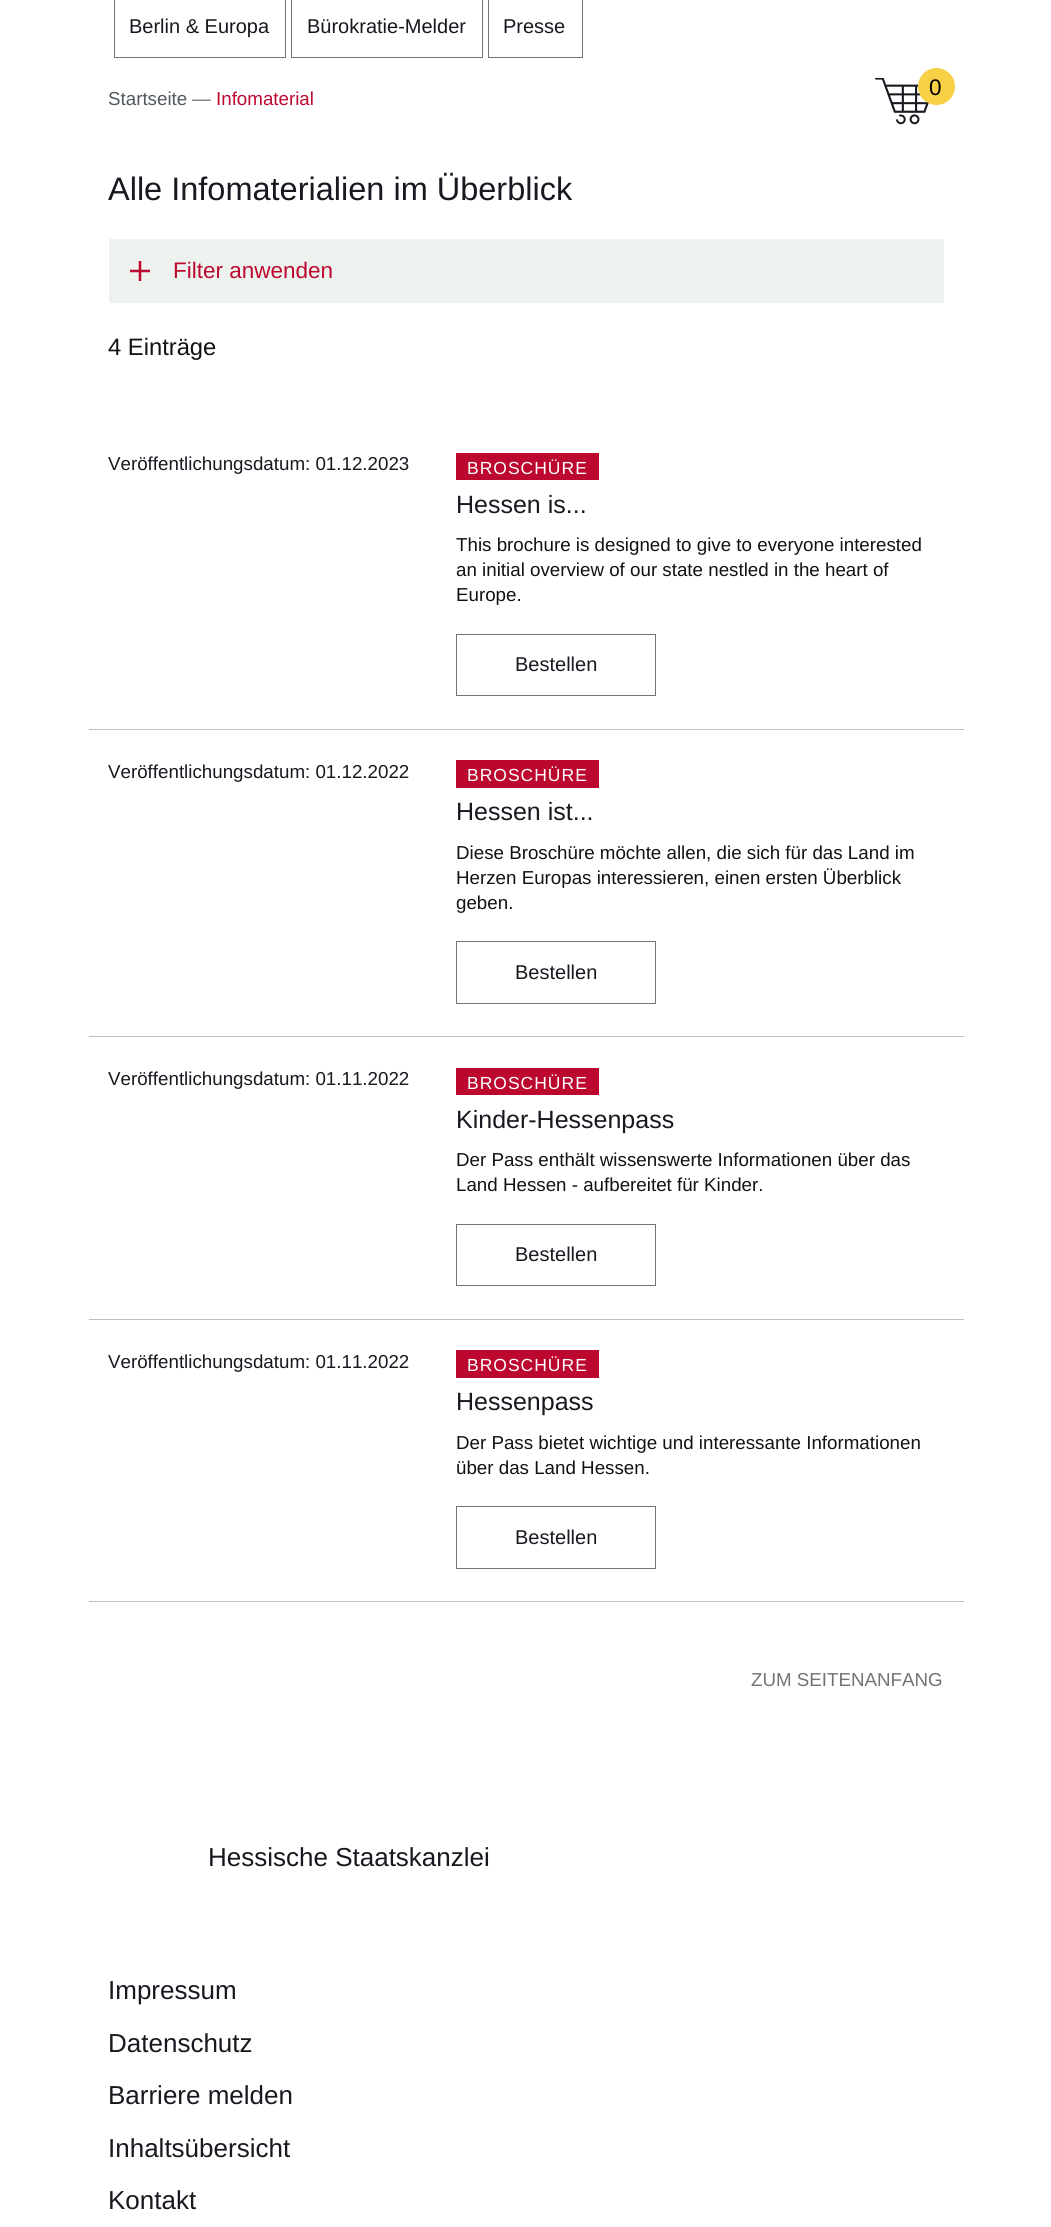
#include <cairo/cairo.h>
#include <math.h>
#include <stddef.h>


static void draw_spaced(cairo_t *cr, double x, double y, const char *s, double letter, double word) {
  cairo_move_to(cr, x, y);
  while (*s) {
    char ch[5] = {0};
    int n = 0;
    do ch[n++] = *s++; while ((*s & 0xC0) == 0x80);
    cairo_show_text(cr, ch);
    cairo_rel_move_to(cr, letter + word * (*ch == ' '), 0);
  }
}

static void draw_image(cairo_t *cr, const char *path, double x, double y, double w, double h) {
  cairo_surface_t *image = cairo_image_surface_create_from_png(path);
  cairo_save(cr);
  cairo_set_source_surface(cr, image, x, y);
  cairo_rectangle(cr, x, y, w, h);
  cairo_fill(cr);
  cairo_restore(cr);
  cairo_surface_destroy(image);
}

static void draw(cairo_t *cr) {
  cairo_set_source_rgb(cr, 1, 1, 1);
  cairo_paint(cr);
  cairo_rectangle(cr, 114.5, -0.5, 171, 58);
  cairo_set_source_rgb(cr, 115 / 255.0, 115 / 255.0, 115 / 255.0);
  cairo_set_line_width(cr, 1);
  cairo_stroke(cr);
  cairo_rectangle(cr, 291.5, -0.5, 191, 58);
  cairo_stroke(cr);
  cairo_rectangle(cr, 488.5, -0.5, 94, 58);
  cairo_stroke(cr);
  draw_image(cr, "images/1.png", 875, 78, 54, 47);
  cairo_set_source_rgb(cr, 247 / 255.0, 208 / 255.0, 70 / 255.0);
  cairo_arc(cr, 936.5, 86.5, 18.5, 0, 2 * M_PI);
  cairo_fill(cr);
  cairo_set_source_rgb(cr, 238 / 255.0, 242 / 255.0, 238 / 255.0);
  cairo_rectangle(cr, 109, 239, 835, 64);
  cairo_fill(cr);
  cairo_new_path(cr);
  cairo_move_to(cr, 130, 271);
  cairo_line_to(cr, 150, 271);
  cairo_move_to(cr, 140, 261);
  cairo_line_to(cr, 140, 281);
  cairo_set_source_rgb(cr, 188 / 255.0, 8 / 255.0, 47 / 255.0);
  cairo_set_line_width(cr, 2.5);
  cairo_stroke(cr);
  cairo_set_source_rgb(cr, 190 / 255.0, 192 / 255.0, 195 / 255.0);
  cairo_rectangle(cr, 89, 729, 875, 1);
  cairo_fill(cr);
  cairo_set_source_rgb(cr, 188 / 255.0, 8 / 255.0, 47 / 255.0);
  cairo_rectangle(cr, 456, 453, 143, 27);
  cairo_fill(cr);
  cairo_rectangle(cr, 456.5, 634.5, 199, 61);
  cairo_set_source_rgb(cr, 115 / 255.0, 115 / 255.0, 115 / 255.0);
  cairo_set_line_width(cr, 1);
  cairo_stroke(cr);
  cairo_set_source_rgb(cr, 190 / 255.0, 192 / 255.0, 195 / 255.0);
  cairo_rectangle(cr, 89, 1036, 875, 1);
  cairo_fill(cr);
  cairo_set_source_rgb(cr, 188 / 255.0, 8 / 255.0, 47 / 255.0);
  cairo_rectangle(cr, 456, 760, 143, 28);
  cairo_fill(cr);
  cairo_rectangle(cr, 456.5, 941.5, 199, 62);
  cairo_set_source_rgb(cr, 115 / 255.0, 115 / 255.0, 115 / 255.0);
  cairo_stroke(cr);
  cairo_set_source_rgb(cr, 190 / 255.0, 192 / 255.0, 195 / 255.0);
  cairo_rectangle(cr, 89, 1319, 875, 1);
  cairo_fill(cr);
  cairo_set_source_rgb(cr, 188 / 255.0, 8 / 255.0, 47 / 255.0);
  cairo_rectangle(cr, 456, 1068, 143, 27);
  cairo_fill(cr);
  cairo_rectangle(cr, 456.5, 1224.5, 199, 61);
  cairo_set_source_rgb(cr, 115 / 255.0, 115 / 255.0, 115 / 255.0);
  cairo_stroke(cr);
  cairo_set_source_rgb(cr, 190 / 255.0, 192 / 255.0, 195 / 255.0);
  cairo_rectangle(cr, 89, 1601, 875, 1);
  cairo_fill(cr);
  cairo_set_source_rgb(cr, 188 / 255.0, 8 / 255.0, 47 / 255.0);
  cairo_rectangle(cr, 456, 1350, 143, 28);
  cairo_fill(cr);
  cairo_rectangle(cr, 456.5, 1506.5, 199, 62);
  cairo_set_source_rgb(cr, 115 / 255.0, 115 / 255.0, 115 / 255.0);
  cairo_stroke(cr);
  cairo_select_font_face(cr, "Liberation Sans", CAIRO_FONT_SLANT_NORMAL, CAIRO_FONT_WEIGHT_NORMAL);
  cairo_set_font_size(cr, 20);
  cairo_set_source_rgb(cr, 22 / 255.0, 25 / 255.0, 31 / 255.0);
  cairo_move_to(cr, 129, 33);
  cairo_show_text(cr, "Berlin & Europa");
  cairo_move_to(cr, 307, 33);
  cairo_show_text(cr, "Bürokratie-Melder");
  cairo_move_to(cr, 503, 33);
  cairo_show_text(cr, "Presse");
  cairo_set_font_size(cr, 22.5);
  cairo_set_source_rgb(cr, 0, 0, 0);
  cairo_move_to(cr, 929, 95);
  cairo_show_text(cr, "0");
  cairo_set_font_size(cr, 18.75);
  cairo_set_source_rgb(cr, 81 / 255.0, 87 / 255.0, 96 / 255.0);
  cairo_move_to(cr, 108, 105);
  cairo_show_text(cr, "Startseite");
  cairo_set_source_rgb(cr, 115 / 255.0, 115 / 255.0, 115 / 255.0);
  cairo_move_to(cr, 192, 105);
  cairo_show_text(cr, "—");
  cairo_set_source_rgb(cr, 188 / 255.0, 8 / 255.0, 47 / 255.0);
  cairo_move_to(cr, 216, 105);
  cairo_show_text(cr, "Infomaterial");
  cairo_set_font_size(cr, 32.5);
  cairo_set_source_rgb(cr, 22 / 255.0, 25 / 255.0, 31 / 255.0);
  cairo_move_to(cr, 108, 200);
  cairo_show_text(cr, "Alle Infomaterialien im Überblick");
  cairo_set_font_size(cr, 22.5);
  cairo_set_source_rgb(cr, 188 / 255.0, 8 / 255.0, 47 / 255.0);
  cairo_move_to(cr, 173, 278);
  cairo_show_text(cr, "Filter anwenden");
  cairo_set_font_size(cr, 23.75);
  cairo_set_source_rgb(cr, 18 / 255.0, 18 / 255.0, 18 / 255.0);
  cairo_move_to(cr, 108, 355);
  cairo_show_text(cr, "4 Einträge");
  cairo_set_font_size(cr, 18.75);
  cairo_set_source_rgb(cr, 22 / 255.0, 25 / 255.0, 31 / 255.0);
  cairo_move_to(cr, 108, 470);
  cairo_show_text(cr, "Veröffentlichungsdatum: 01.12.2023");
  cairo_set_font_size(cr, 17.5);
  cairo_set_source_rgb(cr, 1, 1, 1);
  draw_spaced(cr, 467, 474, "BROSCHÜRE", 1, 0);
  cairo_set_font_size(cr, 25);
  cairo_set_source_rgb(cr, 22 / 255.0, 25 / 255.0, 31 / 255.0);
  cairo_move_to(cr, 456, 513);
  cairo_show_text(cr, "Hessen is...");
  cairo_set_font_size(cr, 18.75);
  cairo_set_source_rgb(cr, 18 / 255.0, 18 / 255.0, 18 / 255.0);
  cairo_move_to(cr, 456, 551);
  cairo_show_text(cr, "This brochure is designed to give to everyone interested");
  cairo_move_to(cr, 456, 576);
  cairo_show_text(cr, "an initial overview of our state nestled in the heart of");
  cairo_move_to(cr, 456, 601);
  cairo_show_text(cr, "Europe.");
  cairo_set_font_size(cr, 20);
  cairo_set_source_rgb(cr, 22 / 255.0, 25 / 255.0, 31 / 255.0);
  cairo_move_to(cr, 515, 671);
  cairo_show_text(cr, "Bestellen");
  cairo_set_font_size(cr, 18.75);
  cairo_move_to(cr, 108, 778);
  cairo_show_text(cr, "Veröffentlichungsdatum: 01.12.2022");
  cairo_set_font_size(cr, 17.5);
  cairo_set_source_rgb(cr, 1, 1, 1);
  draw_spaced(cr, 467, 781, "BROSCHÜRE", 1, 0);
  cairo_set_font_size(cr, 25);
  cairo_set_source_rgb(cr, 22 / 255.0, 25 / 255.0, 31 / 255.0);
  cairo_move_to(cr, 456, 820);
  cairo_show_text(cr, "Hessen ist...");
  cairo_set_font_size(cr, 18.75);
  cairo_set_source_rgb(cr, 18 / 255.0, 18 / 255.0, 18 / 255.0);
  cairo_move_to(cr, 456, 859);
  cairo_show_text(cr, "Diese Broschüre möchte allen, die sich für das Land im");
  cairo_move_to(cr, 456, 884);
  cairo_show_text(cr, "Herzen Europas interessieren, einen ersten Überblick");
  cairo_move_to(cr, 456, 909);
  cairo_show_text(cr, "geben.");
  cairo_set_font_size(cr, 20);
  cairo_set_source_rgb(cr, 22 / 255.0, 25 / 255.0, 31 / 255.0);
  cairo_move_to(cr, 515, 979);
  cairo_show_text(cr, "Bestellen");
  cairo_set_font_size(cr, 18.75);
  cairo_move_to(cr, 108, 1085);
  cairo_show_text(cr, "Veröffentlichungsdatum: 01.11.2022");
  cairo_set_font_size(cr, 17.5);
  cairo_set_source_rgb(cr, 1, 1, 1);
  draw_spaced(cr, 467, 1089, "BROSCHÜRE", 1, 0);
  cairo_set_font_size(cr, 25);
  cairo_set_source_rgb(cr, 22 / 255.0, 25 / 255.0, 31 / 255.0);
  cairo_move_to(cr, 456, 1128);
  cairo_show_text(cr, "Kinder-Hessenpass");
  cairo_set_font_size(cr, 18.75);
  cairo_set_source_rgb(cr, 18 / 255.0, 18 / 255.0, 18 / 255.0);
  cairo_move_to(cr, 456, 1166);
  cairo_show_text(cr, "Der Pass enthält wissenswerte Informationen über das");
  cairo_move_to(cr, 456, 1191);
  cairo_show_text(cr, "Land Hessen - aufbereitet für Kinder.");
  cairo_set_font_size(cr, 20);
  cairo_set_source_rgb(cr, 22 / 255.0, 25 / 255.0, 31 / 255.0);
  cairo_move_to(cr, 515, 1261);
  cairo_show_text(cr, "Bestellen");
  cairo_set_font_size(cr, 18.75);
  cairo_move_to(cr, 108, 1368);
  cairo_show_text(cr, "Veröffentlichungsdatum: 01.11.2022");
  cairo_set_font_size(cr, 17.5);
  cairo_set_source_rgb(cr, 1, 1, 1);
  draw_spaced(cr, 467, 1371, "BROSCHÜRE", 1, 0);
  cairo_set_font_size(cr, 25);
  cairo_set_source_rgb(cr, 22 / 255.0, 25 / 255.0, 31 / 255.0);
  cairo_move_to(cr, 456, 1410);
  cairo_show_text(cr, "Hessenpass");
  cairo_set_font_size(cr, 18.75);
  cairo_set_source_rgb(cr, 18 / 255.0, 18 / 255.0, 18 / 255.0);
  cairo_move_to(cr, 456, 1449);
  cairo_show_text(cr, "Der Pass bietet wichtige und interessante Informationen");
  cairo_move_to(cr, 456, 1474);
  cairo_show_text(cr, "über das Land Hessen.");
  cairo_set_font_size(cr, 20);
  cairo_set_source_rgb(cr, 22 / 255.0, 25 / 255.0, 31 / 255.0);
  cairo_move_to(cr, 515, 1544);
  cairo_show_text(cr, "Bestellen");
  cairo_set_font_size(cr, 18.75);
  cairo_set_source_rgb(cr, 115 / 255.0, 115 / 255.0, 115 / 255.0);
  cairo_move_to(cr, 751, 1686);
  cairo_show_text(cr, "ZUM SEITENANFANG");
  cairo_set_font_size(cr, 26);
  cairo_set_source_rgb(cr, 22 / 255.0, 25 / 255.0, 31 / 255.0);
  cairo_move_to(cr, 208, 1866);
  cairo_show_text(cr, "Hessische Staatskanzlei");
  cairo_move_to(cr, 108, 1999);
  cairo_show_text(cr, "Impressum");
  cairo_move_to(cr, 108, 2052);
  cairo_show_text(cr, "Datenschutz");
  cairo_move_to(cr, 108, 2104);
  cairo_show_text(cr, "Barriere melden");
  cairo_move_to(cr, 108, 2157);
  cairo_show_text(cr, "Inhaltsübersicht");
  cairo_move_to(cr, 108, 2209);
  cairo_show_text(cr, "Kontakt");
}

int main(void) {
  cairo_surface_t *surface = cairo_image_surface_create(CAIRO_FORMAT_RGB24, 1051, 2227);
  cairo_t *cr = cairo_create(surface);
  cairo_font_options_t *options = cairo_font_options_create();
  cairo_font_options_set_hint_metrics(options, CAIRO_HINT_METRICS_OFF);
  cairo_font_options_set_hint_style(options, CAIRO_HINT_STYLE_NONE);
  cairo_set_font_options(cr, options);
  cairo_set_miter_limit(cr, 4);
  draw(cr);
  cairo_surface_write_to_png(surface, "out.png");
  cairo_font_options_destroy(options);
  cairo_destroy(cr);
  cairo_surface_destroy(surface);
  return 0;
}
